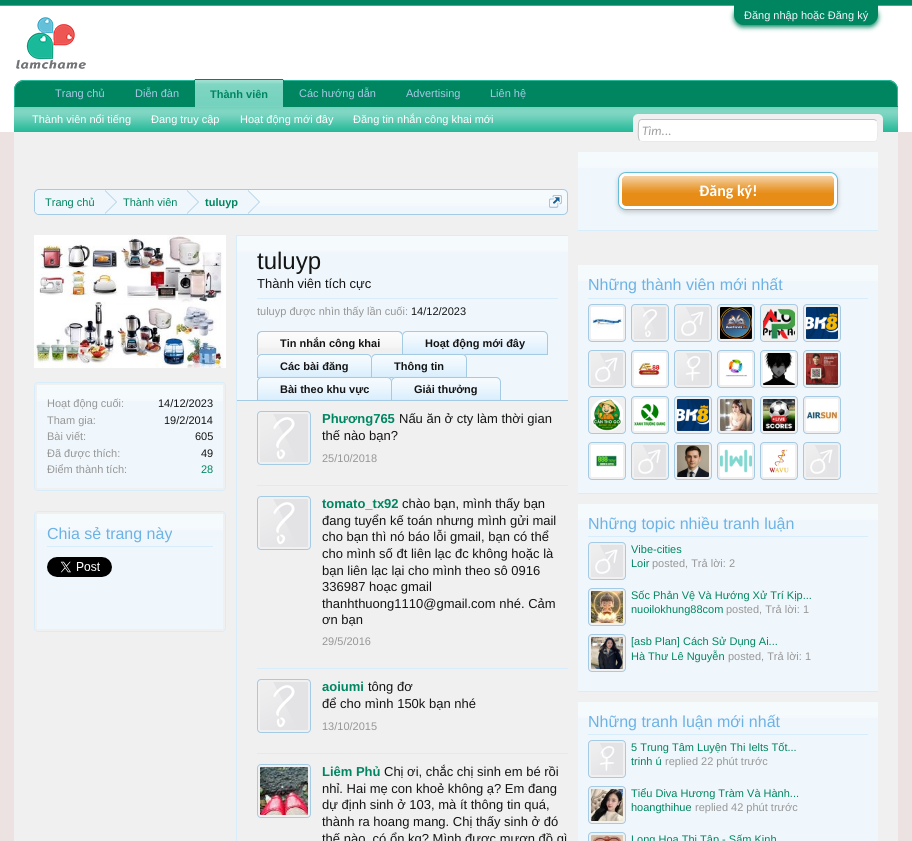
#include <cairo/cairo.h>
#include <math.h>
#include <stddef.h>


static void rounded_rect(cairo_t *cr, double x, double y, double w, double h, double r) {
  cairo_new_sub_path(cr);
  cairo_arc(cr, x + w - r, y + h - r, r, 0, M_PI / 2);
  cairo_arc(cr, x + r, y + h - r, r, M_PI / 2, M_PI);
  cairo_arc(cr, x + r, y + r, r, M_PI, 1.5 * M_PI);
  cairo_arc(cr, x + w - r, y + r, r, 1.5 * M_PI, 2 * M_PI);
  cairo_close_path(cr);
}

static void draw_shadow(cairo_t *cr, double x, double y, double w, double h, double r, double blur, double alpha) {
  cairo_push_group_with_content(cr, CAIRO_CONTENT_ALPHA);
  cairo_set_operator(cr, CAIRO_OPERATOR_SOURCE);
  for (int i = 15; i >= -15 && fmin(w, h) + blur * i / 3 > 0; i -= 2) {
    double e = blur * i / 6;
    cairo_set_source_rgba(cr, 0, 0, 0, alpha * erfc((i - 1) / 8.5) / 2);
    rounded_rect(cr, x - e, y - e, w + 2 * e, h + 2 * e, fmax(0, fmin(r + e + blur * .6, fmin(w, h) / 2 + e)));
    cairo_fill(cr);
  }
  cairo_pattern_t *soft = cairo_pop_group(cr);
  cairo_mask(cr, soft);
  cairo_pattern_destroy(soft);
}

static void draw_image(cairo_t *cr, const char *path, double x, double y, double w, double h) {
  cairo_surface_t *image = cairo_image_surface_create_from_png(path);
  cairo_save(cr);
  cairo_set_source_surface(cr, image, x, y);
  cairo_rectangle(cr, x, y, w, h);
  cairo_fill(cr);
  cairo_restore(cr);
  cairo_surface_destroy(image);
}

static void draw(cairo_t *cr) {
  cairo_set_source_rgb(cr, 236 / 255.0, 226 / 255.0, 226 / 255.0);
  cairo_paint(cr);
  cairo_set_source_rgb(cr, 0, 133 / 255.0, 97 / 255.0);
  cairo_rectangle(cr, 0, 0, 912, 5);
  cairo_fill(cr);
  cairo_set_source_rgb(cr, 39 / 255.0, 185 / 255.0, 153 / 255.0);
  cairo_rectangle(cr, 0, 5, 912, 1);
  cairo_fill(cr);
  cairo_set_source_rgb(cr, 1, 1, 1);
  cairo_rectangle(cr, 0, 6, 912, 126);
  cairo_fill(cr);
  cairo_set_source_rgb(cr, 0, 133 / 255.0, 97 / 255.0);
  draw_shadow(cr, 734, 7, 144, 20, 10, 2.5, 1);
  cairo_set_source_rgb(cr, 0, 133 / 255.0, 97 / 255.0);
  cairo_new_path(cr);
  cairo_move_to(cr, 734, 5);
  cairo_line_to(cr, 878, 5);
  cairo_line_to(cr, 878, 15);
  cairo_curve_to(cr, 878, 20.5, 873.5, 25, 868, 25);
  cairo_line_to(cr, 744, 25);
  cairo_curve_to(cr, 738.5, 25, 734, 20.5, 734, 15);
  cairo_close_path(cr);
  cairo_fill(cr);
  draw_image(cr, "images/1.png", 16, 17, 70, 52);
  cairo_new_path(cr);
  cairo_move_to(cr, 24, 80);
  cairo_line_to(cr, 888, 80);
  cairo_curve_to(cr, 893.5, 80, 898, 84.5, 898, 90);
  cairo_line_to(cr, 898, 107);
  cairo_line_to(cr, 14, 107);
  cairo_line_to(cr, 14, 90);
  cairo_curve_to(cr, 14, 84.5, 18.5, 80, 24, 80);
  cairo_close_path(cr);
  cairo_fill(cr);
  cairo_set_source_rgb(cr, 39 / 255.0, 185 / 255.0, 153 / 255.0);
  cairo_new_path(cr);
  cairo_move_to(cr, 24, 80);
  cairo_curve_to(cr, 21, 80, 18, 81, 17, 83);
  cairo_line_to(cr, 18, 84);
  cairo_curve_to(cr, 19, 82, 22, 81, 24, 81);
  cairo_line_to(cr, 888, 81);
  cairo_curve_to(cr, 890, 81, 893, 82, 894, 84);
  cairo_line_to(cr, 895, 83);
  cairo_curve_to(cr, 894, 81, 891, 80, 888, 80);
  cairo_close_path(cr);
  cairo_fill(cr);
  cairo_new_path(cr);
  cairo_move_to(cr, 898, 107);
  cairo_line_to(cr, 898, 90);
  cairo_curve_to(cr, 898, 87, 897, 84.5, 895, 83);
  cairo_line_to(cr, 894.5, 83.5);
  cairo_curve_to(cr, 896, 85, 897, 87.5, 897, 90);
  cairo_line_to(cr, 897, 106);
  cairo_close_path(cr);
  cairo_fill(cr);
  cairo_set_source_rgb(cr, 0, 133 / 255.0, 97 / 255.0);
  cairo_new_path(cr);
  cairo_move_to(cr, 898, 107);
  cairo_line_to(cr, 897, 106);
  cairo_line_to(cr, 15, 106);
  cairo_line_to(cr, 14, 107);
  cairo_close_path(cr);
  cairo_fill(cr);
  cairo_set_source_rgb(cr, 39 / 255.0, 185 / 255.0, 153 / 255.0);
  cairo_new_path(cr);
  cairo_move_to(cr, 14, 107);
  cairo_line_to(cr, 15, 106);
  cairo_line_to(cr, 15, 90);
  cairo_curve_to(cr, 15, 87.5, 16, 85, 17.5, 83.5);
  cairo_line_to(cr, 17, 83);
  cairo_curve_to(cr, 15, 84.5, 14, 87, 14, 90);
  cairo_close_path(cr);
  cairo_fill(cr);
  cairo_new_path(cr);
  cairo_move_to(cr, 196, 79);
  cairo_line_to(cr, 282, 79);
  cairo_curve_to(cr, 283, 79, 284, 80, 284, 81);
  cairo_line_to(cr, 284, 107);
  cairo_line_to(cr, 194, 107);
  cairo_line_to(cr, 194, 81);
  cairo_curve_to(cr, 194, 80, 195, 79, 196, 79);
  cairo_close_path(cr);
  cairo_fill(cr);
  draw_image(cr, "images/2.png", 195, 80, 88, 27);
  cairo_set_source_rgb(cr, 0, 133 / 255.0, 97 / 255.0);
  cairo_rectangle(cr, 195, 79, 88, 1);
  cairo_fill(cr);
  cairo_rectangle(cr, 283, 80, 1, 27);
  cairo_fill(cr);
  cairo_rectangle(cr, 194, 80, 1, 27);
  cairo_fill(cr);
  cairo_set_source_rgb(cr, 39 / 255.0, 185 / 255.0, 153 / 255.0);
  cairo_rectangle(cr, 14, 107, 884, 25);
  cairo_fill(cr);
  draw_image(cr, "images/3.png", 14, 107, 884, 24);
  cairo_set_source_rgb(cr, 240 / 255.0, 240 / 255.0, 240 / 255.0);
  cairo_rectangle(cr, 14, 132, 884, 709);
  cairo_fill(cr);
  rounded_rect(cr, 633, 114, 250, 28, 5);
  cairo_fill(cr);
  cairo_set_source_rgb(cr, 1, 1, 1);
  rounded_rect(cr, 638, 119, 240, 23, 4);
  cairo_fill(cr);
  cairo_new_path(cr);
  cairo_move_to(cr, 876.5, 120.5);
  cairo_curve_to(cr, 878.5, 123, 877.5, 132.5, 877.5, 135.5);
  cairo_curve_to(cr, 877.5, 138, 877.5, 141.5, 874, 141.5);
  cairo_line_to(cr, 642, 141.5);
  cairo_line_to(cr, 639.5, 140.5);
  cairo_set_source_rgb(cr, 233 / 255.0, 233 / 255.0, 233 / 255.0);
  cairo_set_line_width(cr, 1);
  cairo_stroke(cr);
  cairo_new_path(cr);
  cairo_move_to(cr, 639.5, 140.5);
  cairo_curve_to(cr, 637.5, 138, 638.5, 128.5, 638.5, 125.5);
  cairo_curve_to(cr, 638.5, 123, 638.5, 119.5, 642, 119.5);
  cairo_line_to(cr, 874, 119.5);
  cairo_line_to(cr, 876.5, 120.5);
  cairo_set_source_rgb(cr, 192 / 255.0, 192 / 255.0, 192 / 255.0);
  cairo_stroke(cr);
  cairo_set_source_rgb(cr, 240 / 255.0, 247 / 255.0, 252 / 255.0);
  rounded_rect(cr, 34, 189, 534, 26, 5);
  cairo_fill(cr);
  draw_image(cr, "images/4.png", 34, 190, 534, 16);
  rounded_rect(cr, 34.5, 189.5, 533, 25, 4.5);
  cairo_set_source_rgb(cr, 165 / 255.0, 202 / 255.0, 228 / 255.0);
  cairo_stroke(cr);
  cairo_save(cr);
  rounded_rect(cr, 35, 190, 532, 24, 4);
  cairo_clip(cr);
  cairo_set_source_rgb(cr, 240 / 255.0, 247 / 255.0, 252 / 255.0);
  cairo_new_path(cr);
  cairo_move_to(cr, 40, 190);
  cairo_line_to(cr, 105, 190);
  cairo_line_to(cr, 105, 215);
  cairo_line_to(cr, 40, 215);
  cairo_curve_to(cr, 37, 215, 35, 213, 35, 210);
  cairo_line_to(cr, 35, 195);
  cairo_curve_to(cr, 35, 192, 37, 190, 40, 190);
  cairo_close_path(cr);
  cairo_fill(cr);
  cairo_restore(cr);
  cairo_set_source_rgb(cr, 240 / 255.0, 247 / 255.0, 252 / 255.0);
  cairo_rectangle(cr, 105, 190, 143, 16);
  cairo_fill(cr);
  cairo_set_source_rgb(cr, 165 / 255.0, 202 / 255.0, 228 / 255.0);
  cairo_new_path(cr);
  cairo_move_to(cr, 105, 214);
  cairo_line_to(cr, 105, 190);
  cairo_line_to(cr, 117, 202);
  cairo_close_path(cr);
  cairo_fill(cr);
  cairo_set_source_rgb(cr, 240 / 255.0, 247 / 255.0, 252 / 255.0);
  cairo_new_path(cr);
  cairo_move_to(cr, 104, 214);
  cairo_line_to(cr, 104, 190);
  cairo_line_to(cr, 116, 202);
  cairo_close_path(cr);
  cairo_fill(cr);
  cairo_set_source_rgb(cr, 165 / 255.0, 202 / 255.0, 228 / 255.0);
  cairo_new_path(cr);
  cairo_move_to(cr, 187, 214);
  cairo_line_to(cr, 187, 190);
  cairo_line_to(cr, 199, 202);
  cairo_close_path(cr);
  cairo_fill(cr);
  cairo_set_source_rgb(cr, 240 / 255.0, 247 / 255.0, 252 / 255.0);
  cairo_new_path(cr);
  cairo_move_to(cr, 186, 214);
  cairo_line_to(cr, 186, 190);
  cairo_line_to(cr, 198, 202);
  cairo_close_path(cr);
  cairo_fill(cr);
  cairo_set_source_rgb(cr, 165 / 255.0, 202 / 255.0, 228 / 255.0);
  cairo_new_path(cr);
  cairo_move_to(cr, 248, 214);
  cairo_line_to(cr, 248, 190);
  cairo_line_to(cr, 260, 202);
  cairo_close_path(cr);
  cairo_fill(cr);
  cairo_set_source_rgb(cr, 240 / 255.0, 247 / 255.0, 252 / 255.0);
  cairo_new_path(cr);
  cairo_move_to(cr, 247, 214);
  cairo_line_to(cr, 247, 190);
  cairo_line_to(cr, 259, 202);
  cairo_close_path(cr);
  cairo_fill(cr);
  draw_image(cr, "images/5.png", 549, 195, 13, 13);
  draw_image(cr, "images/6.png", 34, 235, 192, 133);
  rounded_rect(cr, 34.5, 382.5, 191, 108, 3.5);
  cairo_set_source_rgb(cr, 215 / 255.0, 237 / 255.0, 252 / 255.0);
  cairo_stroke(cr);
  cairo_set_source_rgb(cr, 240 / 255.0, 247 / 255.0, 252 / 255.0);
  cairo_rectangle(cr, 37, 385, 186, 103);
  cairo_fill(cr);
  draw_image(cr, "images/7.png", 37, 385, 186, 16);
  rounded_rect(cr, 34.5, 511.5, 191, 120, 3.5);
  cairo_set_source_rgb(cr, 215 / 255.0, 237 / 255.0, 252 / 255.0);
  cairo_stroke(cr);
  cairo_set_source_rgb(cr, 240 / 255.0, 247 / 255.0, 252 / 255.0);
  cairo_rectangle(cr, 37, 514, 186, 115);
  cairo_fill(cr);
  draw_image(cr, "images/7.png", 37, 514, 186, 16);
  cairo_set_source_rgb(cr, 215 / 255.0, 237 / 255.0, 252 / 255.0);
  cairo_rectangle(cr, 47, 546, 166, 1);
  cairo_fill(cr);
  draw_image(cr, "images/8.png", 47, 557, 65, 20);
  cairo_rectangle(cr, 236, 235, 1, 606);
  cairo_fill(cr);
  cairo_rectangle(cr, 237, 235, 331, 1);
  cairo_fill(cr);
  cairo_set_source_rgb(cr, 240 / 255.0, 247 / 255.0, 252 / 255.0);
  cairo_rectangle(cr, 237, 236, 331, 164);
  cairo_fill(cr);
  draw_image(cr, "images/9.png", 237, 236, 331, 16);
  cairo_set_source_rgb(cr, 215 / 255.0, 237 / 255.0, 252 / 255.0);
  cairo_rectangle(cr, 257, 298, 301, 1);
  cairo_fill(cr);
  cairo_set_source_rgb(cr, 165 / 255.0, 202 / 255.0, 228 / 255.0);
  cairo_rectangle(cr, 237, 400, 331, 1);
  cairo_fill(cr);
  cairo_set_source_rgb(cr, 240 / 255.0, 240 / 255.0, 240 / 255.0);
  cairo_new_path(cr);
  cairo_move_to(cr, 262, 331);
  cairo_line_to(cr, 398, 331);
  cairo_curve_to(cr, 401, 331, 403, 333, 403, 336);
  cairo_line_to(cr, 403, 355);
  cairo_line_to(cr, 257, 355);
  cairo_line_to(cr, 257, 336);
  cairo_curve_to(cr, 257, 333, 259, 331, 262, 331);
  cairo_close_path(cr);
  cairo_fill(cr);
  draw_image(cr, "images/10.png", 257, 332, 146, 16);
  cairo_set_source_rgb(cr, 165 / 255.0, 202 / 255.0, 228 / 255.0);
  cairo_set_fill_rule(cr, CAIRO_FILL_RULE_EVEN_ODD);
  cairo_new_path(cr);
  cairo_move_to(cr, 262, 331);
  cairo_line_to(cr, 398, 331);
  cairo_curve_to(cr, 401, 331, 403, 333, 403, 336);
  cairo_line_to(cr, 403, 355);
  cairo_line_to(cr, 257, 355);
  cairo_line_to(cr, 257, 336);
  cairo_curve_to(cr, 257, 333, 259, 331, 262, 331);
  cairo_close_path(cr);
  cairo_move_to(cr, 262, 332);
  cairo_line_to(cr, 398, 332);
  cairo_curve_to(cr, 400, 332, 402, 334, 402, 336);
  cairo_line_to(cr, 402, 355);
  cairo_line_to(cr, 258, 355);
  cairo_line_to(cr, 258, 336);
  cairo_curve_to(cr, 258, 334, 260, 332, 262, 332);
  cairo_close_path(cr);
  cairo_fill(cr);
  cairo_set_source_rgb(cr, 215 / 255.0, 237 / 255.0, 252 / 255.0);
  cairo_new_path(cr);
  cairo_move_to(cr, 407, 331);
  cairo_line_to(cr, 543, 331);
  cairo_curve_to(cr, 546, 331, 548, 333, 548, 336);
  cairo_line_to(cr, 548, 355);
  cairo_line_to(cr, 402, 355);
  cairo_line_to(cr, 402, 336);
  cairo_curve_to(cr, 402, 333, 404, 331, 407, 331);
  cairo_close_path(cr);
  cairo_fill(cr);
  draw_image(cr, "images/11.png", 402, 332, 146, 21);
  cairo_new_path(cr);
  cairo_move_to(cr, 407, 331.5);
  cairo_line_to(cr, 543, 331.5);
  cairo_curve_to(cr, 545.5, 331.5, 547.5, 333.5, 547.5, 336);
  cairo_line_to(cr, 547.5, 354.5);
  cairo_line_to(cr, 402.5, 354.5);
  cairo_line_to(cr, 402.5, 336);
  cairo_curve_to(cr, 402.5, 333.5, 404.5, 331.5, 407, 331.5);
  cairo_close_path(cr);
  cairo_set_source_rgb(cr, 165 / 255.0, 202 / 255.0, 228 / 255.0);
  cairo_stroke(cr);
  cairo_set_source_rgb(cr, 215 / 255.0, 237 / 255.0, 252 / 255.0);
  cairo_new_path(cr);
  cairo_move_to(cr, 262, 354);
  cairo_line_to(cr, 367, 354);
  cairo_curve_to(cr, 370, 354, 372, 356, 372, 359);
  cairo_line_to(cr, 372, 378);
  cairo_line_to(cr, 257, 378);
  cairo_line_to(cr, 257, 359);
  cairo_curve_to(cr, 257, 356, 259, 354, 262, 354);
  cairo_close_path(cr);
  cairo_fill(cr);
  draw_image(cr, "images/12.png", 257, 355, 115, 21);
  cairo_new_path(cr);
  cairo_move_to(cr, 262, 354.5);
  cairo_line_to(cr, 367, 354.5);
  cairo_curve_to(cr, 369.5, 354.5, 371.5, 356.5, 371.5, 359);
  cairo_line_to(cr, 371.5, 377.5);
  cairo_line_to(cr, 257.5, 377.5);
  cairo_line_to(cr, 257.5, 359);
  cairo_curve_to(cr, 257.5, 356.5, 259.5, 354.5, 262, 354.5);
  cairo_close_path(cr);
  cairo_set_source_rgb(cr, 165 / 255.0, 202 / 255.0, 228 / 255.0);
  cairo_stroke(cr);
  cairo_set_source_rgb(cr, 215 / 255.0, 237 / 255.0, 252 / 255.0);
  cairo_new_path(cr);
  cairo_move_to(cr, 376, 354);
  cairo_line_to(cr, 462, 354);
  cairo_curve_to(cr, 465, 354, 467, 356, 467, 359);
  cairo_line_to(cr, 467, 378);
  cairo_line_to(cr, 371, 378);
  cairo_line_to(cr, 371, 359);
  cairo_curve_to(cr, 371, 356, 373, 354, 376, 354);
  cairo_close_path(cr);
  cairo_fill(cr);
  draw_image(cr, "images/13.png", 371, 355, 96, 21);
  cairo_new_path(cr);
  cairo_move_to(cr, 376, 354.5);
  cairo_line_to(cr, 462, 354.5);
  cairo_curve_to(cr, 464.5, 354.5, 466.5, 356.5, 466.5, 359);
  cairo_line_to(cr, 466.5, 377.5);
  cairo_line_to(cr, 371.5, 377.5);
  cairo_line_to(cr, 371.5, 359);
  cairo_curve_to(cr, 371.5, 356.5, 373.5, 354.5, 376, 354.5);
  cairo_close_path(cr);
  cairo_set_source_rgb(cr, 165 / 255.0, 202 / 255.0, 228 / 255.0);
  cairo_stroke(cr);
  cairo_set_source_rgb(cr, 215 / 255.0, 237 / 255.0, 252 / 255.0);
  cairo_new_path(cr);
  cairo_move_to(cr, 262, 377);
  cairo_line_to(cr, 387, 377);
  cairo_curve_to(cr, 390, 377, 392, 379, 392, 382);
  cairo_line_to(cr, 392, 401);
  cairo_line_to(cr, 257, 401);
  cairo_line_to(cr, 257, 382);
  cairo_curve_to(cr, 257, 379, 259, 377, 262, 377);
  cairo_close_path(cr);
  cairo_fill(cr);
  draw_image(cr, "images/14.png", 257, 378, 135, 21);
  cairo_new_path(cr);
  cairo_move_to(cr, 262, 377.5);
  cairo_line_to(cr, 387, 377.5);
  cairo_curve_to(cr, 389.5, 377.5, 391.5, 379.5, 391.5, 382);
  cairo_line_to(cr, 391.5, 400.5);
  cairo_line_to(cr, 257.5, 400.5);
  cairo_line_to(cr, 257.5, 382);
  cairo_curve_to(cr, 257.5, 379.5, 259.5, 377.5, 262, 377.5);
  cairo_close_path(cr);
  cairo_set_source_rgb(cr, 165 / 255.0, 202 / 255.0, 228 / 255.0);
  cairo_stroke(cr);
  cairo_set_source_rgb(cr, 215 / 255.0, 237 / 255.0, 252 / 255.0);
  cairo_new_path(cr);
  cairo_move_to(cr, 396, 377);
  cairo_line_to(cr, 496, 377);
  cairo_curve_to(cr, 499, 377, 501, 379, 501, 382);
  cairo_line_to(cr, 501, 401);
  cairo_line_to(cr, 391, 401);
  cairo_line_to(cr, 391, 382);
  cairo_curve_to(cr, 391, 379, 393, 377, 396, 377);
  cairo_close_path(cr);
  cairo_fill(cr);
  draw_image(cr, "images/15.png", 391, 378, 110, 21);
  cairo_new_path(cr);
  cairo_move_to(cr, 396, 377.5);
  cairo_line_to(cr, 496, 377.5);
  cairo_curve_to(cr, 498.5, 377.5, 500.5, 379.5, 500.5, 382);
  cairo_line_to(cr, 500.5, 400.5);
  cairo_line_to(cr, 391.5, 400.5);
  cairo_line_to(cr, 391.5, 382);
  cairo_curve_to(cr, 391.5, 379.5, 393.5, 377.5, 396, 377.5);
  cairo_close_path(cr);
  cairo_set_source_rgb(cr, 165 / 255.0, 202 / 255.0, 228 / 255.0);
  cairo_stroke(cr);
  cairo_set_source_rgb(cr, 215 / 255.0, 237 / 255.0, 252 / 255.0);
  cairo_rectangle(cr, 257, 485, 311, 1);
  cairo_fill(cr);
  rounded_rect(cr, 257.5, 411.5, 53, 53, 3.5);
  cairo_set_source_rgb(cr, 165 / 255.0, 202 / 255.0, 228 / 255.0);
  cairo_stroke(cr);
  draw_image(cr, "images/16.png", 260, 414, 48, 48);
  cairo_set_source_rgb(cr, 215 / 255.0, 237 / 255.0, 252 / 255.0);
  cairo_rectangle(cr, 257, 668, 311, 1);
  cairo_fill(cr);
  rounded_rect(cr, 257.5, 496.5, 53, 53, 3.5);
  cairo_set_source_rgb(cr, 165 / 255.0, 202 / 255.0, 228 / 255.0);
  cairo_stroke(cr);
  draw_image(cr, "images/16.png", 260, 499, 48, 48);
  cairo_set_source_rgb(cr, 215 / 255.0, 237 / 255.0, 252 / 255.0);
  cairo_rectangle(cr, 257, 753, 311, 1);
  cairo_fill(cr);
  rounded_rect(cr, 257.5, 679.5, 53, 53, 3.5);
  cairo_set_source_rgb(cr, 165 / 255.0, 202 / 255.0, 228 / 255.0);
  cairo_stroke(cr);
  draw_image(cr, "images/16.png", 260, 682, 48, 48);
  rounded_rect(cr, 257.5, 764.5, 53, 53, 3.5);
  cairo_stroke(cr);
  draw_image(cr, "images/17.png", 260, 767, 48, 48);
  cairo_set_source_rgb(cr, 240 / 255.0, 247 / 255.0, 252 / 255.0);
  cairo_rectangle(cr, 578, 152, 300, 78);
  cairo_fill(cr);
  draw_image(cr, "images/18.png", 578, 152, 300, 16);
  cairo_set_source_rgb(cr, 215 / 255.0, 237 / 255.0, 252 / 255.0);
  cairo_rectangle(cr, 578, 230, 300, 1);
  cairo_fill(cr);
  cairo_set_source_rgb(cr, 0, 0, 0);
  draw_shadow(cr, 618, 174, 220, 38, 8, 2.5, 0.2);
  cairo_set_source_rgb(cr, 1, 1, 1);
  rounded_rect(cr, 618.5, 172.5, 219, 37, 7.5);
  cairo_fill_preserve(cr);
  cairo_set_source_rgb(cr, 100 / 255.0, 190 / 255.0, 215 / 255.0);
  cairo_stroke(cr);
  cairo_set_source_rgb(cr, 230 / 255.0, 140 / 255.0, 23 / 255.0);
  rounded_rect(cr, 622, 176, 212, 30, 4);
  cairo_fill(cr);
  draw_image(cr, "images/19.png", 622, 176, 212, 17);
  cairo_set_source_rgb(cr, 240 / 255.0, 247 / 255.0, 252 / 255.0);
  cairo_rectangle(cr, 578, 265, 300, 228);
  cairo_fill(cr);
  draw_image(cr, "images/18.png", 578, 265, 300, 16);
  cairo_set_source_rgb(cr, 215 / 255.0, 237 / 255.0, 252 / 255.0);
  cairo_rectangle(cr, 578, 493, 300, 1);
  cairo_fill(cr);
  cairo_rectangle(cr, 588, 298, 280, 1);
  cairo_fill(cr);
  cairo_set_source_rgb(cr, 240 / 255.0, 240 / 255.0, 240 / 255.0);
  rounded_rect(cr, 588.5, 304.5, 37, 37, 3.5);
  cairo_fill_preserve(cr);
  cairo_set_source_rgb(cr, 165 / 255.0, 202 / 255.0, 228 / 255.0);
  cairo_stroke(cr);
  draw_image(cr, "images/20.png", 591, 307, 32, 32);
  cairo_set_source_rgb(cr, 240 / 255.0, 240 / 255.0, 240 / 255.0);
  rounded_rect(cr, 631.5, 304.5, 37, 37, 3.5);
  cairo_fill_preserve(cr);
  cairo_set_source_rgb(cr, 165 / 255.0, 202 / 255.0, 228 / 255.0);
  cairo_stroke(cr);
  draw_image(cr, "images/21.png", 634, 307, 32, 32);
  cairo_set_source_rgb(cr, 240 / 255.0, 240 / 255.0, 240 / 255.0);
  rounded_rect(cr, 674.5, 304.5, 37, 37, 3.5);
  cairo_fill_preserve(cr);
  cairo_set_source_rgb(cr, 165 / 255.0, 202 / 255.0, 228 / 255.0);
  cairo_stroke(cr);
  draw_image(cr, "images/22.png", 677, 307, 32, 32);
  cairo_set_source_rgb(cr, 240 / 255.0, 240 / 255.0, 240 / 255.0);
  rounded_rect(cr, 717.5, 304.5, 37, 37, 3.5);
  cairo_fill_preserve(cr);
  cairo_set_source_rgb(cr, 165 / 255.0, 202 / 255.0, 228 / 255.0);
  cairo_stroke(cr);
  draw_image(cr, "images/23.png", 720, 307, 32, 32);
  cairo_set_source_rgb(cr, 240 / 255.0, 240 / 255.0, 240 / 255.0);
  rounded_rect(cr, 760.5, 304.5, 37, 37, 3.5);
  cairo_fill_preserve(cr);
  cairo_set_source_rgb(cr, 165 / 255.0, 202 / 255.0, 228 / 255.0);
  cairo_stroke(cr);
  draw_image(cr, "images/24.png", 763, 308, 32, 31);
  cairo_set_source_rgb(cr, 240 / 255.0, 240 / 255.0, 240 / 255.0);
  rounded_rect(cr, 803.5, 304.5, 37, 37, 3.5);
  cairo_fill_preserve(cr);
  cairo_set_source_rgb(cr, 165 / 255.0, 202 / 255.0, 228 / 255.0);
  cairo_stroke(cr);
  draw_image(cr, "images/25.png", 806, 307, 32, 32);
  cairo_set_source_rgb(cr, 240 / 255.0, 240 / 255.0, 240 / 255.0);
  rounded_rect(cr, 588.5, 350.5, 37, 37, 3.5);
  cairo_fill_preserve(cr);
  cairo_set_source_rgb(cr, 165 / 255.0, 202 / 255.0, 228 / 255.0);
  cairo_stroke(cr);
  draw_image(cr, "images/22.png", 591, 353, 32, 32);
  cairo_set_source_rgb(cr, 240 / 255.0, 240 / 255.0, 240 / 255.0);
  rounded_rect(cr, 631.5, 350.5, 37, 37, 3.5);
  cairo_fill_preserve(cr);
  cairo_set_source_rgb(cr, 165 / 255.0, 202 / 255.0, 228 / 255.0);
  cairo_stroke(cr);
  draw_image(cr, "images/26.png", 634, 353, 32, 32);
  cairo_set_source_rgb(cr, 240 / 255.0, 240 / 255.0, 240 / 255.0);
  rounded_rect(cr, 674.5, 350.5, 37, 37, 3.5);
  cairo_fill_preserve(cr);
  cairo_set_source_rgb(cr, 165 / 255.0, 202 / 255.0, 228 / 255.0);
  cairo_stroke(cr);
  draw_image(cr, "images/27.png", 677, 353, 32, 32);
  cairo_set_source_rgb(cr, 240 / 255.0, 240 / 255.0, 240 / 255.0);
  rounded_rect(cr, 717.5, 350.5, 37, 37, 3.5);
  cairo_fill_preserve(cr);
  cairo_set_source_rgb(cr, 165 / 255.0, 202 / 255.0, 228 / 255.0);
  cairo_stroke(cr);
  draw_image(cr, "images/28.png", 720, 353, 32, 32);
  cairo_set_source_rgb(cr, 240 / 255.0, 240 / 255.0, 240 / 255.0);
  rounded_rect(cr, 760.5, 350.5, 37, 37, 3.5);
  cairo_fill_preserve(cr);
  cairo_set_source_rgb(cr, 165 / 255.0, 202 / 255.0, 228 / 255.0);
  cairo_stroke(cr);
  draw_image(cr, "images/29.png", 763, 353, 32, 32);
  cairo_set_source_rgb(cr, 240 / 255.0, 240 / 255.0, 240 / 255.0);
  rounded_rect(cr, 803.5, 350.5, 37, 37, 3.5);
  cairo_fill_preserve(cr);
  cairo_set_source_rgb(cr, 165 / 255.0, 202 / 255.0, 228 / 255.0);
  cairo_stroke(cr);
  draw_image(cr, "images/30.png", 806, 353, 32, 32);
  cairo_set_source_rgb(cr, 240 / 255.0, 240 / 255.0, 240 / 255.0);
  rounded_rect(cr, 588.5, 396.5, 37, 37, 3.5);
  cairo_fill_preserve(cr);
  cairo_set_source_rgb(cr, 165 / 255.0, 202 / 255.0, 228 / 255.0);
  cairo_stroke(cr);
  draw_image(cr, "images/31.png", 591, 399, 32, 32);
  cairo_set_source_rgb(cr, 240 / 255.0, 240 / 255.0, 240 / 255.0);
  rounded_rect(cr, 631.5, 396.5, 37, 37, 3.5);
  cairo_fill_preserve(cr);
  cairo_set_source_rgb(cr, 165 / 255.0, 202 / 255.0, 228 / 255.0);
  cairo_stroke(cr);
  draw_image(cr, "images/32.png", 634, 399, 32, 32);
  cairo_set_source_rgb(cr, 240 / 255.0, 240 / 255.0, 240 / 255.0);
  rounded_rect(cr, 674.5, 396.5, 37, 37, 3.5);
  cairo_fill_preserve(cr);
  cairo_set_source_rgb(cr, 165 / 255.0, 202 / 255.0, 228 / 255.0);
  cairo_stroke(cr);
  draw_image(cr, "images/25.png", 677, 399, 32, 32);
  cairo_set_source_rgb(cr, 240 / 255.0, 240 / 255.0, 240 / 255.0);
  rounded_rect(cr, 717.5, 396.5, 37, 37, 3.5);
  cairo_fill_preserve(cr);
  cairo_set_source_rgb(cr, 165 / 255.0, 202 / 255.0, 228 / 255.0);
  cairo_stroke(cr);
  draw_image(cr, "images/33.png", 720, 399, 32, 32);
  cairo_set_source_rgb(cr, 240 / 255.0, 240 / 255.0, 240 / 255.0);
  rounded_rect(cr, 760.5, 396.5, 37, 37, 3.5);
  cairo_fill_preserve(cr);
  cairo_set_source_rgb(cr, 165 / 255.0, 202 / 255.0, 228 / 255.0);
  cairo_stroke(cr);
  draw_image(cr, "images/34.png", 763, 399, 32, 32);
  cairo_set_source_rgb(cr, 240 / 255.0, 240 / 255.0, 240 / 255.0);
  rounded_rect(cr, 803.5, 396.5, 37, 37, 3.5);
  cairo_fill_preserve(cr);
  cairo_set_source_rgb(cr, 165 / 255.0, 202 / 255.0, 228 / 255.0);
  cairo_stroke(cr);
  draw_image(cr, "images/35.png", 806, 399, 32, 32);
  cairo_set_source_rgb(cr, 240 / 255.0, 240 / 255.0, 240 / 255.0);
  rounded_rect(cr, 588.5, 442.5, 37, 37, 3.5);
  cairo_fill_preserve(cr);
  cairo_set_source_rgb(cr, 165 / 255.0, 202 / 255.0, 228 / 255.0);
  cairo_stroke(cr);
  draw_image(cr, "images/36.png", 591, 445, 32, 32);
  cairo_set_source_rgb(cr, 240 / 255.0, 240 / 255.0, 240 / 255.0);
  rounded_rect(cr, 631.5, 442.5, 37, 37, 3.5);
  cairo_fill_preserve(cr);
  cairo_set_source_rgb(cr, 165 / 255.0, 202 / 255.0, 228 / 255.0);
  cairo_stroke(cr);
  draw_image(cr, "images/22.png", 634, 445, 32, 32);
  cairo_set_source_rgb(cr, 240 / 255.0, 240 / 255.0, 240 / 255.0);
  rounded_rect(cr, 674.5, 442.5, 37, 37, 3.5);
  cairo_fill_preserve(cr);
  cairo_set_source_rgb(cr, 165 / 255.0, 202 / 255.0, 228 / 255.0);
  cairo_stroke(cr);
  draw_image(cr, "images/37.png", 677, 445, 32, 32);
  cairo_set_source_rgb(cr, 240 / 255.0, 240 / 255.0, 240 / 255.0);
  rounded_rect(cr, 717.5, 442.5, 37, 37, 3.5);
  cairo_fill_preserve(cr);
  cairo_set_source_rgb(cr, 165 / 255.0, 202 / 255.0, 228 / 255.0);
  cairo_stroke(cr);
  draw_image(cr, "images/38.png", 720, 445, 32, 32);
  cairo_set_source_rgb(cr, 240 / 255.0, 240 / 255.0, 240 / 255.0);
  rounded_rect(cr, 760.5, 442.5, 37, 37, 3.5);
  cairo_fill_preserve(cr);
  cairo_set_source_rgb(cr, 165 / 255.0, 202 / 255.0, 228 / 255.0);
  cairo_stroke(cr);
  draw_image(cr, "images/39.png", 763, 445, 32, 32);
  cairo_set_source_rgb(cr, 240 / 255.0, 240 / 255.0, 240 / 255.0);
  rounded_rect(cr, 803.5, 442.5, 37, 37, 3.5);
  cairo_fill_preserve(cr);
  cairo_set_source_rgb(cr, 165 / 255.0, 202 / 255.0, 228 / 255.0);
  cairo_stroke(cr);
  draw_image(cr, "images/22.png", 806, 445, 32, 32);
  cairo_set_source_rgb(cr, 240 / 255.0, 247 / 255.0, 252 / 255.0);
  cairo_rectangle(cr, 578, 504, 300, 187);
  cairo_fill(cr);
  draw_image(cr, "images/18.png", 578, 504, 300, 16);
  cairo_set_source_rgb(cr, 215 / 255.0, 237 / 255.0, 252 / 255.0);
  cairo_rectangle(cr, 578, 691, 300, 1);
  cairo_fill(cr);
  cairo_rectangle(cr, 588, 536, 280, 1);
  cairo_fill(cr);
  cairo_set_source_rgb(cr, 240 / 255.0, 240 / 255.0, 240 / 255.0);
  rounded_rect(cr, 588.5, 542.5, 37, 37, 3.5);
  cairo_fill_preserve(cr);
  cairo_set_source_rgb(cr, 165 / 255.0, 202 / 255.0, 228 / 255.0);
  cairo_stroke(cr);
  draw_image(cr, "images/22.png", 591, 545, 32, 32);
  cairo_set_source_rgb(cr, 240 / 255.0, 240 / 255.0, 240 / 255.0);
  rounded_rect(cr, 588.5, 588.5, 37, 37, 3.5);
  cairo_fill_preserve(cr);
  cairo_set_source_rgb(cr, 165 / 255.0, 202 / 255.0, 228 / 255.0);
  cairo_stroke(cr);
  draw_image(cr, "images/40.png", 591, 591, 32, 32);
  cairo_set_source_rgb(cr, 240 / 255.0, 240 / 255.0, 240 / 255.0);
  rounded_rect(cr, 588.5, 634.5, 37, 37, 3.5);
  cairo_fill_preserve(cr);
  cairo_set_source_rgb(cr, 165 / 255.0, 202 / 255.0, 228 / 255.0);
  cairo_stroke(cr);
  draw_image(cr, "images/41.png", 591, 637, 32, 32);
  cairo_set_source_rgb(cr, 240 / 255.0, 247 / 255.0, 252 / 255.0);
  cairo_rectangle(cr, 578, 702, 300, 139);
  cairo_fill(cr);
  draw_image(cr, "images/18.png", 578, 702, 300, 16);
  cairo_set_source_rgb(cr, 215 / 255.0, 237 / 255.0, 252 / 255.0);
  cairo_rectangle(cr, 588, 734, 280, 1);
  cairo_fill(cr);
  cairo_set_source_rgb(cr, 240 / 255.0, 240 / 255.0, 240 / 255.0);
  rounded_rect(cr, 588.5, 740.5, 37, 37, 3.5);
  cairo_fill_preserve(cr);
  cairo_set_source_rgb(cr, 165 / 255.0, 202 / 255.0, 228 / 255.0);
  cairo_stroke(cr);
  draw_image(cr, "images/27.png", 591, 743, 32, 32);
  cairo_set_source_rgb(cr, 240 / 255.0, 240 / 255.0, 240 / 255.0);
  rounded_rect(cr, 588.5, 786.5, 37, 37, 3.5);
  cairo_fill_preserve(cr);
  cairo_set_source_rgb(cr, 165 / 255.0, 202 / 255.0, 228 / 255.0);
  cairo_stroke(cr);
  draw_image(cr, "images/42.png", 591, 789, 32, 32);
  cairo_set_source_rgb(cr, 240 / 255.0, 240 / 255.0, 240 / 255.0);
  rounded_rect(cr, 588.5, 832.5, 37, 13, 3.5);
  cairo_fill_preserve(cr);
  cairo_set_source_rgb(cr, 165 / 255.0, 202 / 255.0, 228 / 255.0);
  cairo_stroke(cr);
  draw_image(cr, "images/43.png", 591, 835, 32, 6);
  cairo_select_font_face(cr, "Liberation Sans", CAIRO_FONT_SLANT_NORMAL, CAIRO_FONT_WEIGHT_NORMAL);
  cairo_set_font_size(cr, 11);
  cairo_set_source_rgb(cr, 240 / 255.0, 247 / 255.0, 252 / 255.0);
  cairo_move_to(cr, 744, 19);
  cairo_show_text(cr, "Đăng nhập hoặc Đăng ký");
  cairo_set_source_rgb(cr, 165 / 255.0, 202 / 255.0, 228 / 255.0);
  cairo_move_to(cr, 55, 97);
  cairo_show_text(cr, "Trang chủ");
  cairo_move_to(cr, 135, 97);
  cairo_show_text(cr, "Diễn đàn");
  cairo_move_to(cr, 299, 97);
  cairo_show_text(cr, "Các hướng dẫn");
  cairo_select_font_face(cr, "Liberation Sans", CAIRO_FONT_SLANT_NORMAL, CAIRO_FONT_WEIGHT_BOLD);
  cairo_set_source_rgb(cr, 0, 133 / 255.0, 97 / 255.0);
  cairo_move_to(cr, 210, 98);
  cairo_show_text(cr, "Thành viên");
  cairo_select_font_face(cr, "Liberation Sans", CAIRO_FONT_SLANT_NORMAL, CAIRO_FONT_WEIGHT_NORMAL);
  cairo_set_source_rgb(cr, 1, 1, 1);
  cairo_move_to(cr, 32, 123);
  cairo_show_text(cr, "Thành viên nổi tiếng");
  cairo_move_to(cr, 151, 123);
  cairo_show_text(cr, "Đang truy cập");
  cairo_move_to(cr, 240, 123);
  cairo_show_text(cr, "Hoạt động mới đây");
  cairo_move_to(cr, 353, 123);
  cairo_show_text(cr, "Đăng tin nhắn công khai mới");
  cairo_set_source_rgb(cr, 165 / 255.0, 202 / 255.0, 228 / 255.0);
  cairo_move_to(cr, 406, 97);
  cairo_show_text(cr, "Advertising");
  cairo_move_to(cr, 490, 97);
  cairo_show_text(cr, "Liên hệ");
  cairo_select_font_face(cr, "Carlito", CAIRO_FONT_SLANT_ITALIC, CAIRO_FONT_WEIGHT_NORMAL);
  cairo_set_font_size(cr, 13);
  cairo_set_source_rgb(cr, 160 / 255.0, 160 / 255.0, 160 / 255.0);
  cairo_move_to(cr, 642, 135);
  cairo_show_text(cr, "Tìm...");
  cairo_select_font_face(cr, "Liberation Sans", CAIRO_FONT_SLANT_NORMAL, CAIRO_FONT_WEIGHT_NORMAL);
  cairo_set_font_size(cr, 11);
  cairo_set_source_rgb(cr, 0, 133 / 255.0, 97 / 255.0);
  cairo_move_to(cr, 45, 206);
  cairo_show_text(cr, "Trang chủ");
  cairo_move_to(cr, 123, 206);
  cairo_show_text(cr, "Thành viên");
  cairo_select_font_face(cr, "Liberation Sans", CAIRO_FONT_SLANT_NORMAL, CAIRO_FONT_WEIGHT_BOLD);
  cairo_move_to(cr, 205, 206);
  cairo_show_text(cr, "tuluyp");
  cairo_select_font_face(cr, "Liberation Sans", CAIRO_FONT_SLANT_NORMAL, CAIRO_FONT_WEIGHT_NORMAL);
  cairo_set_source_rgb(cr, 150 / 255.0, 150 / 255.0, 150 / 255.0);
  cairo_move_to(cr, 47, 407);
  cairo_show_text(cr, "Hoạt động cuối:");
  cairo_set_source_rgb(cr, 20 / 255.0, 20 / 255.0, 20 / 255.0);
  cairo_move_to(cr, 158, 407);
  cairo_show_text(cr, "14/12/2023");
  cairo_set_source_rgb(cr, 150 / 255.0, 150 / 255.0, 150 / 255.0);
  cairo_move_to(cr, 47, 424);
  cairo_show_text(cr, "Tham gia:");
  cairo_set_source_rgb(cr, 20 / 255.0, 20 / 255.0, 20 / 255.0);
  cairo_move_to(cr, 164, 424);
  cairo_show_text(cr, "19/2/2014");
  cairo_set_source_rgb(cr, 150 / 255.0, 150 / 255.0, 150 / 255.0);
  cairo_move_to(cr, 47, 440);
  cairo_show_text(cr, "Bài viết:");
  cairo_set_source_rgb(cr, 20 / 255.0, 20 / 255.0, 20 / 255.0);
  cairo_move_to(cr, 195, 440);
  cairo_show_text(cr, "605");
  cairo_set_source_rgb(cr, 150 / 255.0, 150 / 255.0, 150 / 255.0);
  cairo_move_to(cr, 47, 457);
  cairo_show_text(cr, "Đã được thích:");
  cairo_set_source_rgb(cr, 20 / 255.0, 20 / 255.0, 20 / 255.0);
  cairo_move_to(cr, 201, 457);
  cairo_show_text(cr, "49");
  cairo_set_source_rgb(cr, 150 / 255.0, 150 / 255.0, 150 / 255.0);
  cairo_move_to(cr, 47, 473);
  cairo_show_text(cr, "Điểm thành tích:");
  cairo_set_source_rgb(cr, 0, 133 / 255.0, 97 / 255.0);
  cairo_move_to(cr, 201, 473);
  cairo_show_text(cr, "28");
  cairo_set_font_size(cr, 16);
  cairo_set_source_rgb(cr, 108 / 255.0, 178 / 255.0, 228 / 255.0);
  cairo_move_to(cr, 47, 539);
  cairo_show_text(cr, "Chia sẻ trang này");
  cairo_set_font_size(cr, 24);
  cairo_set_source_rgb(cr, 20 / 255.0, 20 / 255.0, 20 / 255.0);
  cairo_move_to(cr, 257, 269);
  cairo_show_text(cr, "tuluyp");
  cairo_set_font_size(cr, 13);
  cairo_move_to(cr, 257, 288);
  cairo_show_text(cr, "Thành viên tích cực");
  cairo_set_font_size(cr, 11);
  cairo_set_source_rgb(cr, 150 / 255.0, 150 / 255.0, 150 / 255.0);
  cairo_move_to(cr, 257, 315);
  cairo_show_text(cr, "tuluyp được nhìn thấy lần cuối:");
  cairo_set_source_rgb(cr, 20 / 255.0, 20 / 255.0, 20 / 255.0);
  cairo_move_to(cr, 411, 315);
  cairo_show_text(cr, "14/12/2023");
  cairo_select_font_face(cr, "Liberation Sans", CAIRO_FONT_SLANT_NORMAL, CAIRO_FONT_WEIGHT_BOLD);
  cairo_move_to(cr, 280, 347);
  cairo_show_text(cr, "Tin nhắn công khai");
  cairo_move_to(cr, 425, 347);
  cairo_show_text(cr, "Hoạt động mới đây");
  cairo_move_to(cr, 280, 370);
  cairo_show_text(cr, "Các bài đăng");
  cairo_move_to(cr, 394, 370);
  cairo_show_text(cr, "Thông tin");
  cairo_move_to(cr, 280, 393);
  cairo_show_text(cr, "Bài theo khu vực");
  cairo_move_to(cr, 414, 393);
  cairo_show_text(cr, "Giải thưởng");
  cairo_set_font_size(cr, 13);
  cairo_set_source_rgb(cr, 0, 133 / 255.0, 97 / 255.0);
  cairo_move_to(cr, 322, 423);
  cairo_show_text(cr, "Phương765");
  cairo_select_font_face(cr, "Liberation Sans", CAIRO_FONT_SLANT_NORMAL, CAIRO_FONT_WEIGHT_NORMAL);
  cairo_set_source_rgb(cr, 20 / 255.0, 20 / 255.0, 20 / 255.0);
  cairo_move_to(cr, 399, 423);
  cairo_show_text(cr, "Nấu ăn ở cty làm thời gian");
  cairo_move_to(cr, 322, 440);
  cairo_show_text(cr, "thế nào bạn?");
  cairo_set_font_size(cr, 11);
  cairo_set_source_rgb(cr, 150 / 255.0, 150 / 255.0, 150 / 255.0);
  cairo_move_to(cr, 322, 462);
  cairo_show_text(cr, "25/10/2018");
  cairo_select_font_face(cr, "Liberation Sans", CAIRO_FONT_SLANT_NORMAL, CAIRO_FONT_WEIGHT_BOLD);
  cairo_set_font_size(cr, 13);
  cairo_set_source_rgb(cr, 0, 133 / 255.0, 97 / 255.0);
  cairo_move_to(cr, 322, 508);
  cairo_show_text(cr, "tomato_tx92");
  cairo_select_font_face(cr, "Liberation Sans", CAIRO_FONT_SLANT_NORMAL, CAIRO_FONT_WEIGHT_NORMAL);
  cairo_set_source_rgb(cr, 20 / 255.0, 20 / 255.0, 20 / 255.0);
  cairo_move_to(cr, 402, 508);
  cairo_show_text(cr, "chào bạn, mình thấy bạn");
  cairo_move_to(cr, 322, 525);
  cairo_show_text(cr, "đang tuyển kế toán nhưng mình gửi mail");
  cairo_move_to(cr, 322, 541);
  cairo_show_text(cr, "cho bạn thì nó báo lỗi gmail, bạn có thể");
  cairo_move_to(cr, 322, 558);
  cairo_show_text(cr, "cho mình số đt liên lạc đc không hoặc là");
  cairo_move_to(cr, 322, 575);
  cairo_show_text(cr, "bạn liên lạc lại cho mình theo sô 0916");
  cairo_move_to(cr, 322, 591);
  cairo_show_text(cr, "336987 hoạc gmail");
  cairo_move_to(cr, 322, 608);
  cairo_show_text(cr, "thanhthuong1110@gmail.com nhé. Cảm");
  cairo_move_to(cr, 322, 624);
  cairo_show_text(cr, "ơn bạn");
  cairo_set_font_size(cr, 11);
  cairo_set_source_rgb(cr, 150 / 255.0, 150 / 255.0, 150 / 255.0);
  cairo_move_to(cr, 322, 645);
  cairo_show_text(cr, "29/5/2016");
  cairo_select_font_face(cr, "Liberation Sans", CAIRO_FONT_SLANT_NORMAL, CAIRO_FONT_WEIGHT_BOLD);
  cairo_set_font_size(cr, 13);
  cairo_set_source_rgb(cr, 0, 133 / 255.0, 97 / 255.0);
  cairo_move_to(cr, 322, 691);
  cairo_show_text(cr, "aoiumi");
  cairo_select_font_face(cr, "Liberation Sans", CAIRO_FONT_SLANT_NORMAL, CAIRO_FONT_WEIGHT_NORMAL);
  cairo_set_source_rgb(cr, 20 / 255.0, 20 / 255.0, 20 / 255.0);
  cairo_move_to(cr, 368, 691);
  cairo_show_text(cr, "tông đơ");
  cairo_move_to(cr, 322, 708);
  cairo_show_text(cr, "để cho mình 150k bạn nhé");
  cairo_set_font_size(cr, 11);
  cairo_set_source_rgb(cr, 150 / 255.0, 150 / 255.0, 150 / 255.0);
  cairo_move_to(cr, 322, 730);
  cairo_show_text(cr, "13/10/2015");
  cairo_select_font_face(cr, "Liberation Sans", CAIRO_FONT_SLANT_NORMAL, CAIRO_FONT_WEIGHT_BOLD);
  cairo_set_font_size(cr, 13);
  cairo_set_source_rgb(cr, 0, 133 / 255.0, 97 / 255.0);
  cairo_move_to(cr, 322, 776);
  cairo_show_text(cr, "Liêm Phủ");
  cairo_select_font_face(cr, "Liberation Sans", CAIRO_FONT_SLANT_NORMAL, CAIRO_FONT_WEIGHT_NORMAL);
  cairo_set_source_rgb(cr, 20 / 255.0, 20 / 255.0, 20 / 255.0);
  cairo_move_to(cr, 384, 776);
  cairo_show_text(cr, "Chị ơi, chắc chị sinh em bé rồi");
  cairo_move_to(cr, 322, 793);
  cairo_show_text(cr, "nhỉ. Hai mẹ con khoẻ không ạ? Em đang");
  cairo_move_to(cr, 322, 809);
  cairo_show_text(cr, "dự định sinh ở 103, mà ít thông tin quá,");
  cairo_move_to(cr, 322, 826);
  cairo_show_text(cr, "thành ra hoang mang. Chị thấy sinh ở đó");
  cairo_move_to(cr, 322, 843);
  cairo_show_text(cr, "thế nào, có ổn kg? Mình được mượn đồ gì");
  cairo_select_font_face(cr, "Carlito", CAIRO_FONT_SLANT_NORMAL, CAIRO_FONT_WEIGHT_BOLD);
  cairo_set_font_size(cr, 16);
  cairo_set_source_rgb(cr, 1, 1, 1);
  cairo_move_to(cr, 699, 196);
  cairo_show_text(cr, "Đăng ký!");
  cairo_select_font_face(cr, "Liberation Sans", CAIRO_FONT_SLANT_NORMAL, CAIRO_FONT_WEIGHT_NORMAL);
  cairo_set_source_rgb(cr, 108 / 255.0, 178 / 255.0, 228 / 255.0);
  cairo_move_to(cr, 588, 290);
  cairo_show_text(cr, "Những thành viên mới nhất");
  cairo_move_to(cr, 588, 529);
  cairo_show_text(cr, "Những topic nhiều tranh luận");
  cairo_set_font_size(cr, 11);
  cairo_set_source_rgb(cr, 0, 133 / 255.0, 97 / 255.0);
  cairo_move_to(cr, 631, 553);
  cairo_show_text(cr, "Vibe-cities");
  cairo_move_to(cr, 631, 567);
  cairo_show_text(cr, "Loir");
  cairo_set_source_rgb(cr, 150 / 255.0, 150 / 255.0, 150 / 255.0);
  cairo_move_to(cr, 652, 567);
  cairo_show_text(cr, "posted, Trả lời: 2");
  cairo_set_source_rgb(cr, 0, 133 / 255.0, 97 / 255.0);
  cairo_move_to(cr, 631, 599);
  cairo_show_text(cr, "Sốc Phản Vệ Và Hướng Xử Trí Kịp...");
  cairo_move_to(cr, 631, 613);
  cairo_show_text(cr, "nuoilokhung88com");
  cairo_set_source_rgb(cr, 150 / 255.0, 150 / 255.0, 150 / 255.0);
  cairo_move_to(cr, 726, 613);
  cairo_show_text(cr, "posted, Trả lời: 1");
  cairo_set_source_rgb(cr, 0, 133 / 255.0, 97 / 255.0);
  cairo_move_to(cr, 631, 645);
  cairo_show_text(cr, "[asb Plan] Cách Sử Dụng Ai...");
  cairo_move_to(cr, 631, 660);
  cairo_show_text(cr, "Hà Thư Lê Nguyễn");
  cairo_set_source_rgb(cr, 150 / 255.0, 150 / 255.0, 150 / 255.0);
  cairo_move_to(cr, 728, 660);
  cairo_show_text(cr, "posted, Trả lời: 1");
  cairo_set_font_size(cr, 16);
  cairo_set_source_rgb(cr, 108 / 255.0, 178 / 255.0, 228 / 255.0);
  cairo_move_to(cr, 588, 727);
  cairo_show_text(cr, "Những tranh luận mới nhất");
  cairo_set_font_size(cr, 11);
  cairo_set_source_rgb(cr, 0, 133 / 255.0, 97 / 255.0);
  cairo_move_to(cr, 631, 751);
  cairo_show_text(cr, "5 Trung Tâm Luyện Thi Ielts Tốt...");
  cairo_move_to(cr, 631, 765);
  cairo_show_text(cr, "trinh ú");
  cairo_set_source_rgb(cr, 150 / 255.0, 150 / 255.0, 150 / 255.0);
  cairo_move_to(cr, 665, 765);
  cairo_show_text(cr, "replied 22 phút trước");
  cairo_set_source_rgb(cr, 0, 133 / 255.0, 97 / 255.0);
  cairo_move_to(cr, 631, 797);
  cairo_show_text(cr, "Tiểu Diva Hương Tràm Và Hành...");
  cairo_move_to(cr, 631, 811);
  cairo_show_text(cr, "hoangthihue");
  cairo_set_source_rgb(cr, 150 / 255.0, 150 / 255.0, 150 / 255.0);
  cairo_move_to(cr, 695, 811);
  cairo_show_text(cr, "replied 42 phút trước");
  cairo_set_source_rgb(cr, 0, 133 / 255.0, 97 / 255.0);
  cairo_move_to(cr, 631, 843);
  cairo_show_text(cr, "Long Hoa Thi Tập - Sấm Kinh");
}

int main(void) {
  cairo_surface_t *surface = cairo_image_surface_create(CAIRO_FORMAT_RGB24, 912, 841);
  cairo_t *cr = cairo_create(surface);
  cairo_font_options_t *options = cairo_font_options_create();
  cairo_font_options_set_hint_metrics(options, CAIRO_HINT_METRICS_OFF);
  cairo_font_options_set_hint_style(options, CAIRO_HINT_STYLE_NONE);
  cairo_set_font_options(cr, options);
  cairo_set_miter_limit(cr, 4);
  draw(cr);
  cairo_surface_write_to_png(surface, "out.png");
  cairo_font_options_destroy(options);
  cairo_destroy(cr);
  cairo_surface_destroy(surface);
  return 0;
}
